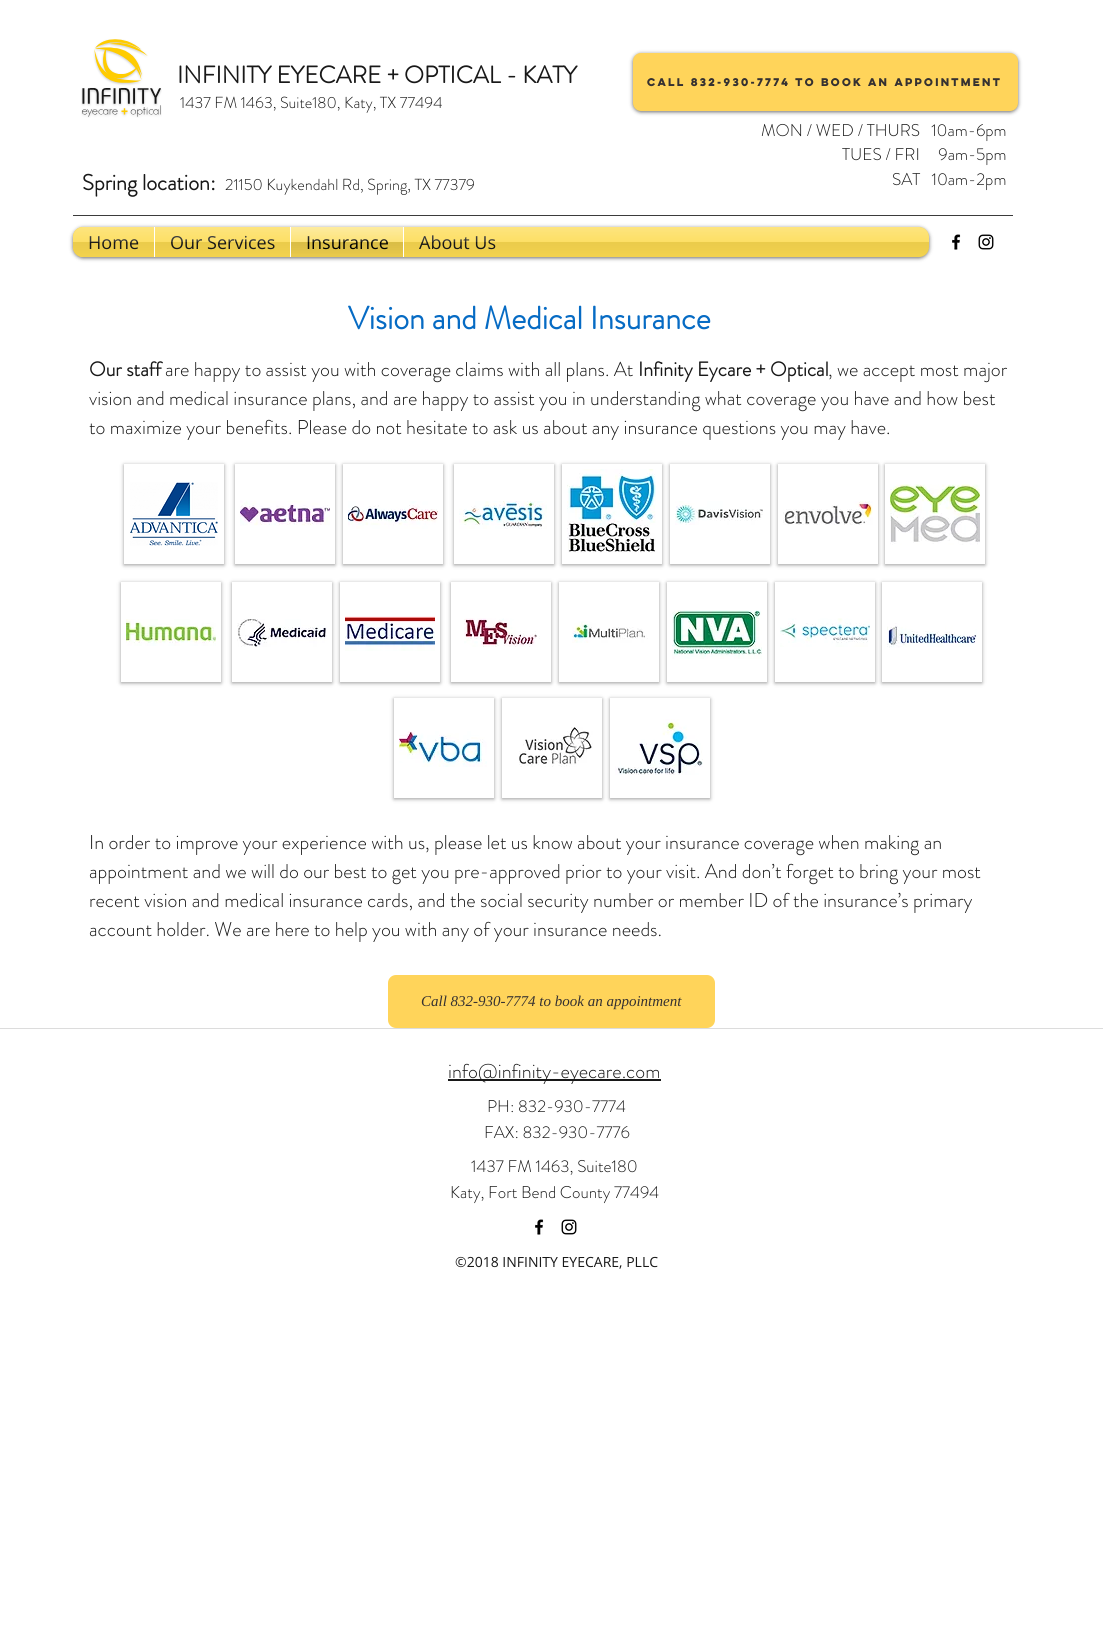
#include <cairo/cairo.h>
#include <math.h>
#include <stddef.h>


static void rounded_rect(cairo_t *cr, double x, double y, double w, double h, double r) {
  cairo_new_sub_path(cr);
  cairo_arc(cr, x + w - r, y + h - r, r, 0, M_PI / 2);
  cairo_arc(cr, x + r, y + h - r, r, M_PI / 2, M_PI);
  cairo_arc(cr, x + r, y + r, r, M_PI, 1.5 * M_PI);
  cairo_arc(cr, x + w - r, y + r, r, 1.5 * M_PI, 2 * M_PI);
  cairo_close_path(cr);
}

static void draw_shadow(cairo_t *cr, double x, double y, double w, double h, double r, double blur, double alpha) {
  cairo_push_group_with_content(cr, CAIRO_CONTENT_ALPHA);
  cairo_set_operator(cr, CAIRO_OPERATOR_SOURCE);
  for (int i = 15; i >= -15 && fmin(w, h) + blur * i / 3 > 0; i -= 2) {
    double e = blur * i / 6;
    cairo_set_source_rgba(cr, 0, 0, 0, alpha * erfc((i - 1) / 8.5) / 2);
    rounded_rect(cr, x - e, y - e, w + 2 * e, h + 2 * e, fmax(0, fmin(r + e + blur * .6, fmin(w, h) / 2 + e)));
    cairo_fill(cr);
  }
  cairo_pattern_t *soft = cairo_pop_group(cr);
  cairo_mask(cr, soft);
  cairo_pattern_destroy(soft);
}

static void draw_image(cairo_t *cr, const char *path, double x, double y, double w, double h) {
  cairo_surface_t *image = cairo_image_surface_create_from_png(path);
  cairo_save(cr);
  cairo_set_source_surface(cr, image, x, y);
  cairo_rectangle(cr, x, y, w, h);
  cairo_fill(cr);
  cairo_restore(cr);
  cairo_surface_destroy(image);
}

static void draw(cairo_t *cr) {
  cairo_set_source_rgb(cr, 1, 1, 1);
  cairo_paint(cr);
  draw_image(cr, "images/1.png", 81, 39, 81, 79);
  cairo_set_source_rgb(cr, 0, 0, 0);
  draw_shadow(cr, 633, 54, 385, 58, 8, 2, 0.6);
  cairo_set_source_rgb(cr, 1, 212 / 255.0, 90 / 255.0);
  rounded_rect(cr, 633, 53, 385, 58, 8);
  cairo_fill(cr);
  cairo_set_source_rgb(cr, 59 / 255.0, 59 / 255.0, 59 / 255.0);
  cairo_rectangle(cr, 73, 215, 940, 1);
  cairo_fill(cr);
  cairo_set_source_rgb(cr, 0, 0, 0);
  draw_shadow(cr, 73, 228, 856, 30, 10, 2, 0.6);
  cairo_set_source_rgb(cr, 253 / 255.0, 219 / 255.0, 81 / 255.0);
  rounded_rect(cr, 73, 227, 856, 30, 10);
  cairo_fill(cr);
  draw_image(cr, "images/2.png", 73, 227, 856, 30);
  cairo_new_path(cr);
  cairo_move_to(cr, 83, 227);
  cairo_line_to(cr, 154, 227);
  cairo_line_to(cr, 154, 257);
  cairo_line_to(cr, 83, 257);
  cairo_curve_to(cr, 77.5, 257, 73, 252.5, 73, 247);
  cairo_line_to(cr, 73, 237);
  cairo_curve_to(cr, 73, 231.5, 77.5, 227, 83, 227);
  cairo_close_path(cr);
  cairo_fill(cr);
  cairo_rectangle(cr, 155, 227, 135, 30);
  cairo_fill(cr);
  cairo_set_source_rgb(cr, 1, 1, 1);
  cairo_rectangle(cr, 154, 227, 1, 30);
  cairo_fill(cr);
  cairo_rectangle(cr, 290, 227, 1, 30);
  cairo_fill(cr);
  cairo_set_source_rgb(cr, 253 / 255.0, 219 / 255.0, 81 / 255.0);
  cairo_rectangle(cr, 404, 227, 107, 30);
  cairo_fill(cr);
  cairo_set_source_rgb(cr, 1, 1, 1);
  cairo_rectangle(cr, 403, 227, 1, 30);
  cairo_fill(cr);
  draw_image(cr, "images/7.png", 952, 234, 9, 16);
  draw_image(cr, "images/8.png", 978, 234, 16, 16);
  cairo_save(cr);
  cairo_set_fill_rule(cr, CAIRO_FILL_RULE_EVEN_ODD);
  cairo_new_path(cr);
  cairo_move_to(cr, 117, 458);
  cairo_line_to(cr, 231, 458);
  cairo_line_to(cr, 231, 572);
  cairo_line_to(cr, 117, 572);
  cairo_close_path(cr);
  cairo_move_to(cr, 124, 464);
  cairo_line_to(cr, 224, 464);
  cairo_line_to(cr, 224, 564);
  cairo_line_to(cr, 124, 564);
  cairo_close_path(cr);
  cairo_clip(cr);
  cairo_set_source_rgb(cr, 0, 0, 0);
  draw_shadow(cr, 124, 465, 100, 100, 0, 2, 0.4);
  cairo_restore(cr);
  draw_image(cr, "images/9.png", 130, 482, 88, 64);
  cairo_save(cr);
  cairo_set_fill_rule(cr, CAIRO_FILL_RULE_EVEN_ODD);
  cairo_new_path(cr);
  cairo_move_to(cr, 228, 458);
  cairo_line_to(cr, 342, 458);
  cairo_line_to(cr, 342, 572);
  cairo_line_to(cr, 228, 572);
  cairo_close_path(cr);
  cairo_move_to(cr, 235, 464);
  cairo_line_to(cr, 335, 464);
  cairo_line_to(cr, 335, 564);
  cairo_line_to(cr, 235, 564);
  cairo_close_path(cr);
  cairo_clip(cr);
  cairo_set_source_rgb(cr, 0, 0, 0);
  draw_shadow(cr, 235, 465, 100, 100, 0, 2, 0.4);
  cairo_restore(cr);
  draw_image(cr, "images/10.png", 240, 500, 90, 26);
  cairo_save(cr);
  cairo_set_fill_rule(cr, CAIRO_FILL_RULE_EVEN_ODD);
  cairo_new_path(cr);
  cairo_move_to(cr, 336, 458);
  cairo_line_to(cr, 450, 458);
  cairo_line_to(cr, 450, 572);
  cairo_line_to(cr, 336, 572);
  cairo_close_path(cr);
  cairo_move_to(cr, 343, 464);
  cairo_line_to(cr, 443, 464);
  cairo_line_to(cr, 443, 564);
  cairo_line_to(cr, 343, 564);
  cairo_close_path(cr);
  cairo_clip(cr);
  cairo_set_source_rgb(cr, 0, 0, 0);
  draw_shadow(cr, 343, 465, 100, 100, 0, 2, 0.4);
  cairo_restore(cr);
  draw_image(cr, "images/11.png", 348, 501, 90, 28);
  cairo_save(cr);
  cairo_set_fill_rule(cr, CAIRO_FILL_RULE_EVEN_ODD);
  cairo_new_path(cr);
  cairo_move_to(cr, 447, 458);
  cairo_line_to(cr, 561, 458);
  cairo_line_to(cr, 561, 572);
  cairo_line_to(cr, 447, 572);
  cairo_close_path(cr);
  cairo_move_to(cr, 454, 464);
  cairo_line_to(cr, 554, 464);
  cairo_line_to(cr, 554, 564);
  cairo_line_to(cr, 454, 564);
  cairo_close_path(cr);
  cairo_clip(cr);
  cairo_set_source_rgb(cr, 0, 0, 0);
  draw_shadow(cr, 454, 465, 100, 100, 0, 2, 0.4);
  cairo_restore(cr);
  draw_image(cr, "images/12.png", 459, 501, 88, 28);
  cairo_save(cr);
  cairo_set_fill_rule(cr, CAIRO_FILL_RULE_EVEN_ODD);
  cairo_new_path(cr);
  cairo_move_to(cr, 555, 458);
  cairo_line_to(cr, 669, 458);
  cairo_line_to(cr, 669, 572);
  cairo_line_to(cr, 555, 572);
  cairo_close_path(cr);
  cairo_move_to(cr, 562, 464);
  cairo_line_to(cr, 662, 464);
  cairo_line_to(cr, 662, 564);
  cairo_line_to(cr, 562, 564);
  cairo_close_path(cr);
  cairo_clip(cr);
  cairo_set_source_rgb(cr, 0, 0, 0);
  draw_shadow(cr, 562, 465, 100, 100, 0, 2, 0.4);
  cairo_restore(cr);
  draw_image(cr, "images/13.png", 567, 469, 89, 84);
  cairo_save(cr);
  cairo_set_fill_rule(cr, CAIRO_FILL_RULE_EVEN_ODD);
  cairo_new_path(cr);
  cairo_move_to(cr, 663, 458);
  cairo_line_to(cr, 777, 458);
  cairo_line_to(cr, 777, 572);
  cairo_line_to(cr, 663, 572);
  cairo_close_path(cr);
  cairo_move_to(cr, 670, 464);
  cairo_line_to(cr, 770, 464);
  cairo_line_to(cr, 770, 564);
  cairo_line_to(cr, 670, 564);
  cairo_close_path(cr);
  cairo_clip(cr);
  cairo_set_source_rgb(cr, 0, 0, 0);
  draw_shadow(cr, 670, 465, 100, 100, 0, 2, 0.4);
  cairo_restore(cr);
  draw_image(cr, "images/14.png", 675, 501, 88, 24);
  cairo_save(cr);
  cairo_set_fill_rule(cr, CAIRO_FILL_RULE_EVEN_ODD);
  cairo_new_path(cr);
  cairo_move_to(cr, 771, 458);
  cairo_line_to(cr, 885, 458);
  cairo_line_to(cr, 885, 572);
  cairo_line_to(cr, 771, 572);
  cairo_close_path(cr);
  cairo_move_to(cr, 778, 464);
  cairo_line_to(cr, 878, 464);
  cairo_line_to(cr, 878, 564);
  cairo_line_to(cr, 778, 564);
  cairo_close_path(cr);
  cairo_clip(cr);
  cairo_set_source_rgb(cr, 0, 0, 0);
  draw_shadow(cr, 778, 465, 100, 100, 0, 2, 0.4);
  cairo_restore(cr);
  draw_image(cr, "images/15.png", 783, 501, 90, 24);
  cairo_save(cr);
  cairo_set_fill_rule(cr, CAIRO_FILL_RULE_EVEN_ODD);
  cairo_new_path(cr);
  cairo_move_to(cr, 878, 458);
  cairo_line_to(cr, 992, 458);
  cairo_line_to(cr, 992, 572);
  cairo_line_to(cr, 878, 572);
  cairo_close_path(cr);
  cairo_move_to(cr, 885, 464);
  cairo_line_to(cr, 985, 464);
  cairo_line_to(cr, 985, 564);
  cairo_line_to(cr, 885, 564);
  cairo_close_path(cr);
  cairo_clip(cr);
  cairo_set_source_rgb(cr, 0, 0, 0);
  draw_shadow(cr, 885, 465, 100, 100, 0, 2, 0.4);
  cairo_restore(cr);
  draw_image(cr, "images/16.png", 890, 484, 90, 61);
  cairo_save(cr);
  cairo_set_fill_rule(cr, CAIRO_FILL_RULE_EVEN_ODD);
  cairo_new_path(cr);
  cairo_move_to(cr, 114, 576);
  cairo_line_to(cr, 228, 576);
  cairo_line_to(cr, 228, 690);
  cairo_line_to(cr, 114, 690);
  cairo_close_path(cr);
  cairo_move_to(cr, 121, 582);
  cairo_line_to(cr, 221, 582);
  cairo_line_to(cr, 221, 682);
  cairo_line_to(cr, 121, 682);
  cairo_close_path(cr);
  cairo_clip(cr);
  cairo_set_source_rgb(cr, 0, 0, 0);
  draw_shadow(cr, 121, 583, 100, 100, 0, 2, 0.4);
  cairo_restore(cr);
  draw_image(cr, "images/17.png", 126, 619, 90, 27);
  cairo_save(cr);
  cairo_set_fill_rule(cr, CAIRO_FILL_RULE_EVEN_ODD);
  cairo_new_path(cr);
  cairo_move_to(cr, 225, 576);
  cairo_line_to(cr, 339, 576);
  cairo_line_to(cr, 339, 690);
  cairo_line_to(cr, 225, 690);
  cairo_close_path(cr);
  cairo_move_to(cr, 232, 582);
  cairo_line_to(cr, 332, 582);
  cairo_line_to(cr, 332, 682);
  cairo_line_to(cr, 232, 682);
  cairo_close_path(cr);
  cairo_clip(cr);
  cairo_set_source_rgb(cr, 0, 0, 0);
  draw_shadow(cr, 232, 583, 100, 100, 0, 2, 0.4);
  cairo_restore(cr);
  draw_image(cr, "images/18.png", 237, 619, 90, 28);
  cairo_save(cr);
  cairo_set_fill_rule(cr, CAIRO_FILL_RULE_EVEN_ODD);
  cairo_new_path(cr);
  cairo_move_to(cr, 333, 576);
  cairo_line_to(cr, 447, 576);
  cairo_line_to(cr, 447, 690);
  cairo_line_to(cr, 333, 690);
  cairo_close_path(cr);
  cairo_move_to(cr, 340, 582);
  cairo_line_to(cr, 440, 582);
  cairo_line_to(cr, 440, 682);
  cairo_line_to(cr, 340, 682);
  cairo_close_path(cr);
  cairo_clip(cr);
  cairo_set_source_rgb(cr, 0, 0, 0);
  draw_shadow(cr, 340, 583, 100, 100, 0, 2, 0.4);
  cairo_restore(cr);
  draw_image(cr, "images/19.png", 345, 616, 90, 35);
  cairo_save(cr);
  cairo_set_fill_rule(cr, CAIRO_FILL_RULE_EVEN_ODD);
  cairo_new_path(cr);
  cairo_move_to(cr, 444, 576);
  cairo_line_to(cr, 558, 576);
  cairo_line_to(cr, 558, 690);
  cairo_line_to(cr, 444, 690);
  cairo_close_path(cr);
  cairo_move_to(cr, 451, 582);
  cairo_line_to(cr, 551, 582);
  cairo_line_to(cr, 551, 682);
  cairo_line_to(cr, 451, 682);
  cairo_close_path(cr);
  cairo_clip(cr);
  cairo_set_source_rgb(cr, 0, 0, 0);
  draw_shadow(cr, 451, 583, 100, 100, 0, 2, 0.4);
  cairo_restore(cr);
  draw_image(cr, "images/20.png", 464, 618, 76, 29);
  cairo_save(cr);
  cairo_set_fill_rule(cr, CAIRO_FILL_RULE_EVEN_ODD);
  cairo_new_path(cr);
  cairo_move_to(cr, 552, 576);
  cairo_line_to(cr, 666, 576);
  cairo_line_to(cr, 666, 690);
  cairo_line_to(cr, 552, 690);
  cairo_close_path(cr);
  cairo_move_to(cr, 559, 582);
  cairo_line_to(cr, 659, 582);
  cairo_line_to(cr, 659, 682);
  cairo_line_to(cr, 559, 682);
  cairo_close_path(cr);
  cairo_clip(cr);
  cairo_set_source_rgb(cr, 0, 0, 0);
  draw_shadow(cr, 559, 583, 100, 100, 0, 2, 0.4);
  cairo_restore(cr);
  draw_image(cr, "images/21.png", 572, 621, 76, 22);
  cairo_save(cr);
  cairo_set_fill_rule(cr, CAIRO_FILL_RULE_EVEN_ODD);
  cairo_new_path(cr);
  cairo_move_to(cr, 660, 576);
  cairo_line_to(cr, 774, 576);
  cairo_line_to(cr, 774, 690);
  cairo_line_to(cr, 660, 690);
  cairo_close_path(cr);
  cairo_move_to(cr, 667, 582);
  cairo_line_to(cr, 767, 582);
  cairo_line_to(cr, 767, 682);
  cairo_line_to(cr, 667, 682);
  cairo_close_path(cr);
  cairo_clip(cr);
  cairo_set_source_rgb(cr, 0, 0, 0);
  draw_shadow(cr, 667, 583, 100, 100, 0, 2, 0.4);
  cairo_restore(cr);
  draw_image(cr, "images/22.png", 672, 610, 90, 49);
  cairo_save(cr);
  cairo_set_fill_rule(cr, CAIRO_FILL_RULE_EVEN_ODD);
  cairo_new_path(cr);
  cairo_move_to(cr, 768, 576);
  cairo_line_to(cr, 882, 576);
  cairo_line_to(cr, 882, 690);
  cairo_line_to(cr, 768, 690);
  cairo_close_path(cr);
  cairo_move_to(cr, 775, 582);
  cairo_line_to(cr, 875, 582);
  cairo_line_to(cr, 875, 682);
  cairo_line_to(cr, 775, 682);
  cairo_close_path(cr);
  cairo_clip(cr);
  cairo_set_source_rgb(cr, 0, 0, 0);
  draw_shadow(cr, 775, 583, 100, 100, 0, 2, 0.4);
  cairo_restore(cr);
  draw_image(cr, "images/23.png", 780, 618, 90, 29);
  cairo_save(cr);
  cairo_set_fill_rule(cr, CAIRO_FILL_RULE_EVEN_ODD);
  cairo_new_path(cr);
  cairo_move_to(cr, 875, 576);
  cairo_line_to(cr, 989, 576);
  cairo_line_to(cr, 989, 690);
  cairo_line_to(cr, 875, 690);
  cairo_close_path(cr);
  cairo_move_to(cr, 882, 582);
  cairo_line_to(cr, 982, 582);
  cairo_line_to(cr, 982, 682);
  cairo_line_to(cr, 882, 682);
  cairo_close_path(cr);
  cairo_clip(cr);
  cairo_set_source_rgb(cr, 0, 0, 0);
  draw_shadow(cr, 882, 583, 100, 100, 0, 2, 0.4);
  cairo_restore(cr);
  draw_image(cr, "images/24.png", 887, 623, 90, 25);
  cairo_save(cr);
  cairo_set_fill_rule(cr, CAIRO_FILL_RULE_EVEN_ODD);
  cairo_new_path(cr);
  cairo_move_to(cr, 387, 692);
  cairo_line_to(cr, 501, 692);
  cairo_line_to(cr, 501, 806);
  cairo_line_to(cr, 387, 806);
  cairo_close_path(cr);
  cairo_move_to(cr, 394, 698);
  cairo_line_to(cr, 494, 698);
  cairo_line_to(cr, 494, 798);
  cairo_line_to(cr, 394, 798);
  cairo_close_path(cr);
  cairo_clip(cr);
  cairo_set_source_rgb(cr, 0, 0, 0);
  draw_shadow(cr, 394, 699, 100, 100, 0, 2, 0.4);
  cairo_restore(cr);
  draw_image(cr, "images/25.png", 399, 731, 88, 36);
  cairo_save(cr);
  cairo_set_fill_rule(cr, CAIRO_FILL_RULE_EVEN_ODD);
  cairo_new_path(cr);
  cairo_move_to(cr, 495, 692);
  cairo_line_to(cr, 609, 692);
  cairo_line_to(cr, 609, 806);
  cairo_line_to(cr, 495, 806);
  cairo_close_path(cr);
  cairo_move_to(cr, 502, 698);
  cairo_line_to(cr, 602, 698);
  cairo_line_to(cr, 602, 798);
  cairo_line_to(cr, 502, 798);
  cairo_close_path(cr);
  cairo_clip(cr);
  cairo_set_source_rgb(cr, 0, 0, 0);
  draw_shadow(cr, 502, 699, 100, 100, 0, 2, 0.4);
  cairo_restore(cr);
  draw_image(cr, "images/26.png", 519, 727, 74, 40);
  cairo_save(cr);
  cairo_set_fill_rule(cr, CAIRO_FILL_RULE_EVEN_ODD);
  cairo_new_path(cr);
  cairo_move_to(cr, 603, 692);
  cairo_line_to(cr, 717, 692);
  cairo_line_to(cr, 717, 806);
  cairo_line_to(cr, 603, 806);
  cairo_close_path(cr);
  cairo_move_to(cr, 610, 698);
  cairo_line_to(cr, 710, 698);
  cairo_line_to(cr, 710, 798);
  cairo_line_to(cr, 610, 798);
  cairo_close_path(cr);
  cairo_clip(cr);
  cairo_set_source_rgb(cr, 0, 0, 0);
  draw_shadow(cr, 610, 699, 100, 100, 0, 2, 0.4);
  cairo_restore(cr);
  draw_image(cr, "images/27.png", 615, 719, 88, 56);
  cairo_set_source_rgb(cr, 1, 212 / 255.0, 90 / 255.0);
  rounded_rect(cr, 388, 975, 327, 53, 8);
  cairo_fill(cr);
  cairo_set_source_rgb(cr, 220 / 255.0, 220 / 255.0, 220 / 255.0);
  cairo_rectangle(cr, 0, 1028, 1103, 1);
  cairo_fill(cr);
  cairo_set_source_rgb(cr, 24 / 255.0, 24 / 255.0, 24 / 255.0);
  cairo_rectangle(cr, 448, 1079, 213, 2);
  cairo_fill(cr);
  draw_image(cr, "images/7.png", 535, 1219, 9, 16);
  draw_image(cr, "images/8.png", 561, 1219, 16, 16);
  cairo_select_font_face(cr, "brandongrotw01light", CAIRO_FONT_SLANT_NORMAL, CAIRO_FONT_WEIGHT_BOLD);
  cairo_set_font_size(cr, 24);
  cairo_move_to(cr, 177, 83);
  cairo_show_text(cr, "INFINITY EYECARE + OPTICAL - KATY");
  cairo_select_font_face(cr, "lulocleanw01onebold", CAIRO_FONT_SLANT_NORMAL, CAIRO_FONT_WEIGHT_BOLD);
  cairo_set_font_size(cr, 10);
  cairo_set_source_rgb(cr, 53 / 255.0, 49 / 255.0, 49 / 255.0);
  cairo_move_to(cr, 647, 86);
  cairo_show_text(cr, "Call 832-930-7774 to book an appointment");
  cairo_select_font_face(cr, "brandongrotw01light Light", CAIRO_FONT_SLANT_NORMAL, CAIRO_FONT_WEIGHT_NORMAL);
  cairo_set_font_size(cr, 16);
  cairo_set_source_rgb(cr, 24 / 255.0, 24 / 255.0, 24 / 255.0);
  cairo_move_to(cr, 180, 108);
  cairo_show_text(cr, "1437 FM 1463, Suite180, Katy, TX 77494");
  cairo_select_font_face(cr, "brandongrotw01light", CAIRO_FONT_SLANT_NORMAL, CAIRO_FONT_WEIGHT_BOLD);
  cairo_set_font_size(cr, 22);
  cairo_move_to(cr, 82, 190);
  cairo_show_text(cr, "Spring location:");
  cairo_select_font_face(cr, "brandongrotw01light Light", CAIRO_FONT_SLANT_NORMAL, CAIRO_FONT_WEIGHT_NORMAL);
  cairo_set_font_size(cr, 16);
  cairo_move_to(cr, 225, 190);
  cairo_show_text(cr, "21150 Kuykendahl Rd, Spring, TX 77379");
  cairo_set_font_size(cr, 17);
  cairo_move_to(cr, 761, 136);
  cairo_show_text(cr, "MON / WED / THURS   10am-6pm");
  cairo_move_to(cr, 842, 160);
  cairo_show_text(cr, "TUES / FRI     9am-5pm");
  cairo_move_to(cr, 892, 185);
  cairo_show_text(cr, "SAT   10am-2pm");
  cairo_select_font_face(cr, "Open Sans", CAIRO_FONT_SLANT_NORMAL, CAIRO_FONT_WEIGHT_NORMAL);
  cairo_set_font_size(cr, 18);
  cairo_move_to(cr, 88, 249);
  cairo_show_text(cr, "Home");
  draw_image(cr, "images/3.png", 73, 227, 81, 30);
  cairo_move_to(cr, 170, 249);
  cairo_show_text(cr, "Our Services");
  draw_image(cr, "images/4.png", 155, 227, 135, 30);
  cairo_set_source_rgb(cr, 0, 0, 0);
  cairo_move_to(cr, 306, 249);
  cairo_show_text(cr, "Insurance");
  draw_image(cr, "images/5.png", 291, 227, 112, 30);
  cairo_set_source_rgb(cr, 24 / 255.0, 24 / 255.0, 24 / 255.0);
  cairo_move_to(cr, 419, 249);
  cairo_show_text(cr, "About Us");
  draw_image(cr, "images/6.png", 404, 227, 107, 30);
  cairo_select_font_face(cr, "brandongrotw01light", CAIRO_FONT_SLANT_NORMAL, CAIRO_FONT_WEIGHT_BOLD);
  cairo_set_font_size(cr, 32);
  cairo_set_source_rgb(cr, 6 / 255.0, 107 / 255.0, 196 / 255.0);
  cairo_move_to(cr, 348, 329);
  cairo_show_text(cr, "Vision and Medical Insurance");
  cairo_set_font_size(cr, 20);
  cairo_set_source_rgb(cr, 24 / 255.0, 24 / 255.0, 24 / 255.0);
  cairo_move_to(cr, 89, 376);
  cairo_show_text(cr, "Our staff");
  cairo_select_font_face(cr, "brandongrotw01light Light", CAIRO_FONT_SLANT_NORMAL, CAIRO_FONT_WEIGHT_NORMAL);
  cairo_move_to(cr, 165, 376);
  cairo_show_text(cr, "are happy to assist you with coverage claims with all plans. At");
  cairo_select_font_face(cr, "brandongrotw01light", CAIRO_FONT_SLANT_NORMAL, CAIRO_FONT_WEIGHT_BOLD);
  cairo_move_to(cr, 638, 376);
  cairo_show_text(cr, "Infinity Eycare + Optical");
  cairo_select_font_face(cr, "brandongrotw01light Light", CAIRO_FONT_SLANT_NORMAL, CAIRO_FONT_WEIGHT_NORMAL);
  cairo_move_to(cr, 828, 376);
  cairo_show_text(cr, ", we accept most major");
  cairo_move_to(cr, 89, 405);
  cairo_show_text(cr, "vision and medical insurance plans, and are happy to assist you in understanding what coverage you have and how best");
  cairo_move_to(cr, 89, 434);
  cairo_show_text(cr, "to maximize your benefits. Please do not hesitate to ask us about any insurance questions you may have.");
  cairo_move_to(cr, 89, 849);
  cairo_show_text(cr, "In order to improve your experience with us, please let us know about your insurance coverage when making an");
  cairo_move_to(cr, 89, 878);
  cairo_show_text(cr, "appointment and we will do our best to get you pre-approved prior to your visit. And don’t forget to bring your most");
  cairo_move_to(cr, 89, 907);
  cairo_show_text(cr, "recent vision and medical insurance cards, and the social security number or member ID of the insurance’s primary");
  cairo_move_to(cr, 89, 936);
  cairo_show_text(cr, "account holder. We are here to help you with any of your insurance needs.");
  cairo_select_font_face(cr, "Liberation Serif", CAIRO_FONT_SLANT_ITALIC, CAIRO_FONT_WEIGHT_NORMAL);
  cairo_set_font_size(cr, 15);
  cairo_set_source_rgb(cr, 53 / 255.0, 49 / 255.0, 49 / 255.0);
  cairo_move_to(cr, 421, 1006);
  cairo_show_text(cr, "Call 832-930-7774 to book an appointment");
  cairo_select_font_face(cr, "brandongrotw01light Light", CAIRO_FONT_SLANT_NORMAL, CAIRO_FONT_WEIGHT_NORMAL);
  cairo_set_font_size(cr, 20);
  cairo_set_source_rgb(cr, 24 / 255.0, 24 / 255.0, 24 / 255.0);
  cairo_move_to(cr, 448, 1078);
  cairo_show_text(cr, "info@infinity-eyecare.com");
  cairo_set_font_size(cr, 17);
  cairo_move_to(cr, 487, 1112);
  cairo_show_text(cr, "PH: 832-930-7774");
  cairo_move_to(cr, 484, 1138);
  cairo_show_text(cr, "FAX: 832-930-7776");
  cairo_move_to(cr, 471, 1172);
  cairo_show_text(cr, "1437 FM 1463, Suite180");
  cairo_move_to(cr, 450, 1198);
  cairo_show_text(cr, "Katy, Fort Bend County 77494");
  cairo_select_font_face(cr, "Open Sans", CAIRO_FONT_SLANT_NORMAL, CAIRO_FONT_WEIGHT_NORMAL);
  cairo_set_font_size(cr, 14);
  cairo_move_to(cr, 455, 1267);
  cairo_show_text(cr, "©2018 INFINITY EYECARE, PLLC");
}

int main(void) {
  cairo_surface_t *surface = cairo_image_surface_create(CAIRO_FORMAT_RGB24, 1103, 1630);
  cairo_t *cr = cairo_create(surface);
  cairo_font_options_t *options = cairo_font_options_create();
  cairo_font_options_set_hint_metrics(options, CAIRO_HINT_METRICS_OFF);
  cairo_font_options_set_hint_style(options, CAIRO_HINT_STYLE_NONE);
  cairo_set_font_options(cr, options);
  cairo_set_miter_limit(cr, 4);
  draw(cr);
  cairo_surface_write_to_png(surface, "out.png");
  cairo_font_options_destroy(options);
  cairo_destroy(cr);
  cairo_surface_destroy(surface);
  return 0;
}
